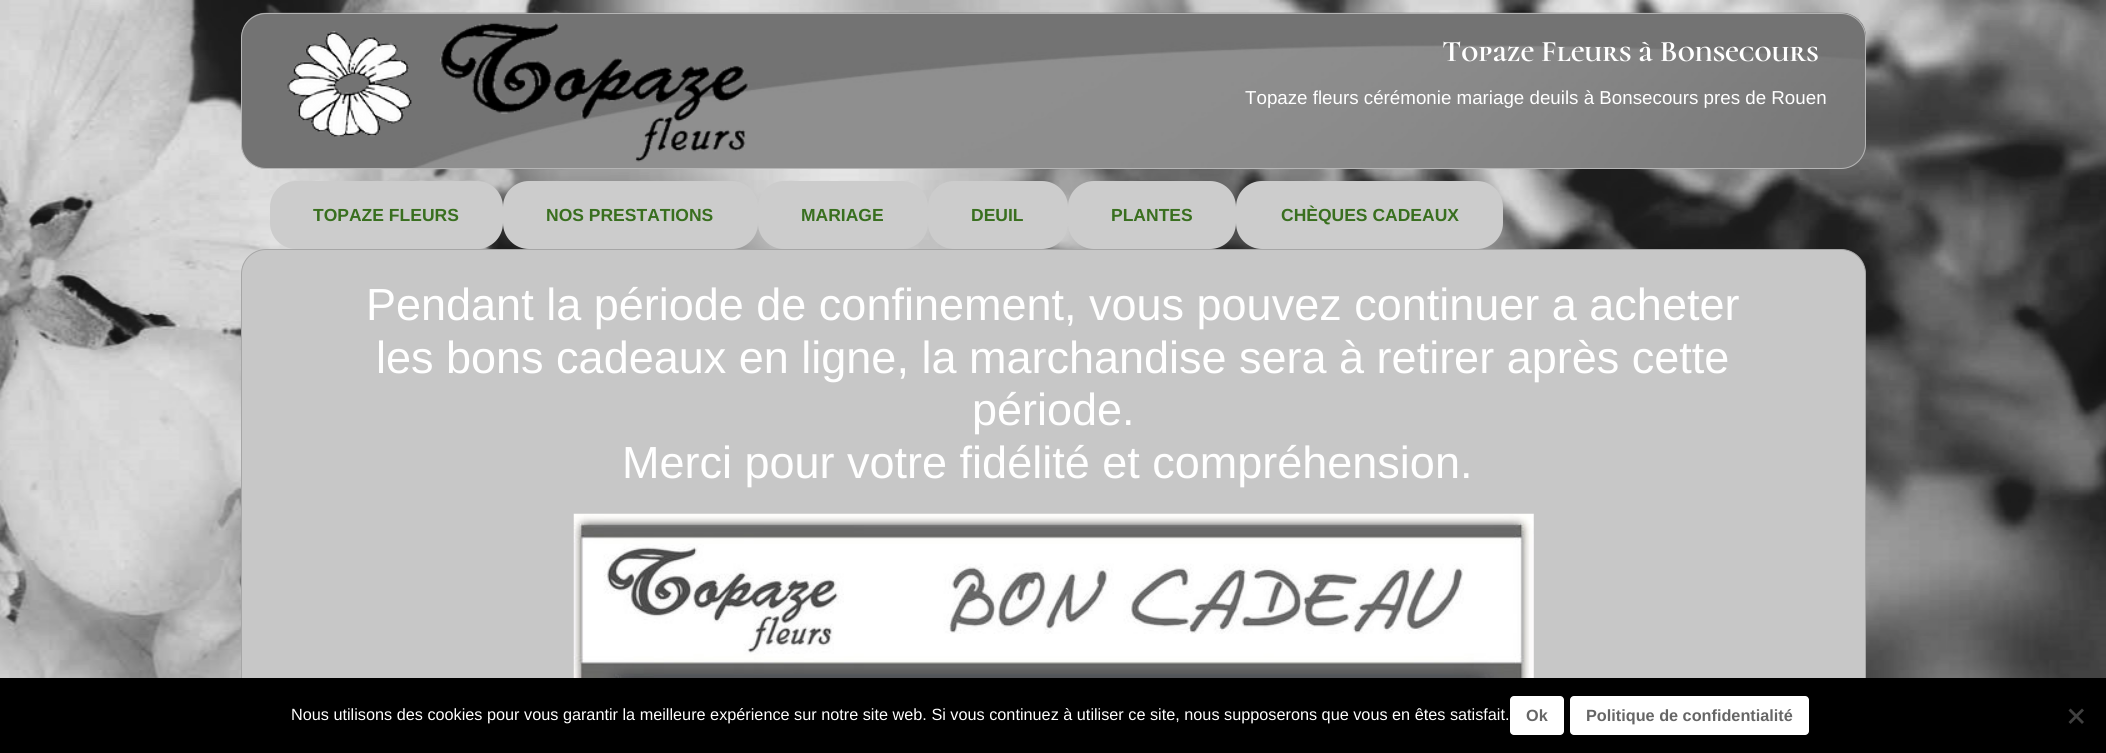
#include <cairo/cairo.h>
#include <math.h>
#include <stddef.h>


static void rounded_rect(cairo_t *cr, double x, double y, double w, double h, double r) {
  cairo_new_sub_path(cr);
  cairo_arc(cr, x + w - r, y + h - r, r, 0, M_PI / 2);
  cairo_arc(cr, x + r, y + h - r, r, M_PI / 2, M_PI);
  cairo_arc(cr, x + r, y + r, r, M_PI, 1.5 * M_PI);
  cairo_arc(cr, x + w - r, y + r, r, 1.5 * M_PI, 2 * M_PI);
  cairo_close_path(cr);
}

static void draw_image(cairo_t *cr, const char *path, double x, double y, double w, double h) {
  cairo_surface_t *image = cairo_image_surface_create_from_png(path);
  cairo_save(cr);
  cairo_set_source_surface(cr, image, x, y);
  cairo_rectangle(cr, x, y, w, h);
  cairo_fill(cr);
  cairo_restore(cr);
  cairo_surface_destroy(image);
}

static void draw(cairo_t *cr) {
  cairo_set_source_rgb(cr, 1, 1, 1);
  cairo_paint(cr);
  draw_image(cr, "images/1.png", 0, 0, 2106, 678);
  draw_image(cr, "images/2.png", 241, 12, 1625, 157);
  rounded_rect(cr, 241.5, 13.5, 1624, 155, 24.5);
  cairo_set_source_rgb(cr, 181 / 255.0, 181 / 255.0, 181 / 255.0);
  cairo_set_line_width(cr, 1);
  cairo_stroke(cr);
  cairo_set_source_rgb(cr, 204 / 255.0, 204 / 255.0, 204 / 255.0);
  rounded_rect(cr, 270, 181, 233, 68, 26);
  cairo_fill(cr);
  rounded_rect(cr, 503, 181, 255, 68, 26);
  cairo_fill(cr);
  rounded_rect(cr, 758, 181, 170, 68, 26);
  cairo_fill(cr);
  rounded_rect(cr, 928, 181, 140, 68, 26);
  cairo_fill(cr);
  rounded_rect(cr, 1068, 181, 168, 68, 26);
  cairo_fill(cr);
  rounded_rect(cr, 1236, 181, 267, 68, 26);
  cairo_fill(cr);
  cairo_set_source_rgb(cr, 199 / 255.0, 199 / 255.0, 199 / 255.0);
  rounded_rect(cr, 241.5, 249.5, 1624, 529, 24.5);
  cairo_fill_preserve(cr);
  cairo_set_source_rgb(cr, 166 / 255.0, 166 / 255.0, 166 / 255.0);
  cairo_stroke(cr);
  draw_image(cr, "images/3.png", 573, 513, 961, 165);
  cairo_set_source_rgb(cr, 0, 0, 0);
  cairo_rectangle(cr, 0, 678, 2106, 75);
  cairo_fill(cr);
  cairo_set_source_rgb(cr, 1, 1, 1);
  rounded_rect(cr, 1510, 696, 54, 39, 4);
  cairo_fill(cr);
  rounded_rect(cr, 1570, 696, 239, 39, 4);
  cairo_fill(cr);
  cairo_set_source_rgb(cr, 64 / 255.0, 64 / 255.0, 64 / 255.0);
  cairo_new_path(cr);
  cairo_move_to(cr, 2082, 708.5);
  cairo_line_to(cr, 2084, 710.5);
  cairo_line_to(cr, 2070.5, 724);
  cairo_line_to(cr, 2068.5, 722);
  cairo_close_path(cr);
  cairo_fill(cr);
  cairo_new_path(cr);
  cairo_move_to(cr, 2068.5, 710.5);
  cairo_line_to(cr, 2070.5, 708.5);
  cairo_line_to(cr, 2084, 722);
  cairo_line_to(cr, 2082, 724);
  cairo_close_path(cr);
  cairo_fill(cr);
  cairo_select_font_face(cr, "Cormorant Unicase", CAIRO_FONT_SLANT_NORMAL, CAIRO_FONT_WEIGHT_BOLD);
  cairo_set_font_size(cr, 30);
  cairo_set_source_rgb(cr, 1, 1, 1);
  cairo_move_to(cr, 1442, 61);
  cairo_show_text(cr, "Topaze Fleurs à Bonsecours");
  cairo_select_font_face(cr, "Liberation Sans", CAIRO_FONT_SLANT_NORMAL, CAIRO_FONT_WEIGHT_NORMAL);
  cairo_set_font_size(cr, 18.75);
  cairo_move_to(cr, 1245, 104);
  cairo_show_text(cr, "Topaze fleurs cérémonie mariage deuils à Bonsecours pres de Rouen");
  cairo_select_font_face(cr, "Liberation Sans", CAIRO_FONT_SLANT_NORMAL, CAIRO_FONT_WEIGHT_BOLD);
  cairo_set_font_size(cr, 17.5);
  cairo_set_source_rgb(cr, 57 / 255.0, 111 / 255.0, 31 / 255.0);
  cairo_move_to(cr, 313, 221);
  cairo_show_text(cr, "TOPAZE FLEURS");
  cairo_move_to(cr, 546, 221);
  cairo_show_text(cr, "NOS PRESTATIONS");
  cairo_move_to(cr, 801, 221);
  cairo_show_text(cr, "MARIAGE");
  cairo_move_to(cr, 971, 221);
  cairo_show_text(cr, "DEUIL");
  cairo_move_to(cr, 1111, 221);
  cairo_show_text(cr, "PLANTES");
  cairo_move_to(cr, 1281, 221);
  cairo_show_text(cr, "CHÈQUES CADEAUX");
  cairo_select_font_face(cr, "Liberation Sans", CAIRO_FONT_SLANT_NORMAL, CAIRO_FONT_WEIGHT_NORMAL);
  cairo_set_font_size(cr, 45);
  cairo_set_source_rgb(cr, 1, 1, 1);
  cairo_move_to(cr, 366, 320);
  cairo_show_text(cr, "Pendant la période de confinement, vous pouvez continuer a acheter");
  cairo_move_to(cr, 376, 373);
  cairo_show_text(cr, "les bons cadeaux en ligne, la marchandise sera à retirer après cette");
  cairo_move_to(cr, 972, 425);
  cairo_show_text(cr, "période.");
  cairo_move_to(cr, 622, 478);
  cairo_show_text(cr, "Merci pour votre fidélité et compréhension.");
  cairo_set_font_size(cr, 16.25);
  cairo_move_to(cr, 291, 720);
  cairo_show_text(cr, "Nous utilisons des cookies pour vous garantir la meilleure expérience sur notre site web. Si vous continuez à utiliser ce site, nous supposerons que vous en êtes satisfait.");
  cairo_select_font_face(cr, "Liberation Sans", CAIRO_FONT_SLANT_NORMAL, CAIRO_FONT_WEIGHT_BOLD);
  cairo_set_source_rgb(cr, 102 / 255.0, 102 / 255.0, 102 / 255.0);
  cairo_move_to(cr, 1526, 721);
  cairo_show_text(cr, "Ok");
  cairo_move_to(cr, 1586, 721);
  cairo_show_text(cr, "Politique de confidentialité");
}

int main(void) {
  cairo_surface_t *surface = cairo_image_surface_create(CAIRO_FORMAT_RGB24, 2106, 753);
  cairo_t *cr = cairo_create(surface);
  cairo_font_options_t *options = cairo_font_options_create();
  cairo_font_options_set_hint_metrics(options, CAIRO_HINT_METRICS_OFF);
  cairo_font_options_set_hint_style(options, CAIRO_HINT_STYLE_NONE);
  cairo_set_font_options(cr, options);
  cairo_set_miter_limit(cr, 4);
  draw(cr);
  cairo_surface_write_to_png(surface, "out.png");
  cairo_font_options_destroy(options);
  cairo_destroy(cr);
  cairo_surface_destroy(surface);
  return 0;
}
